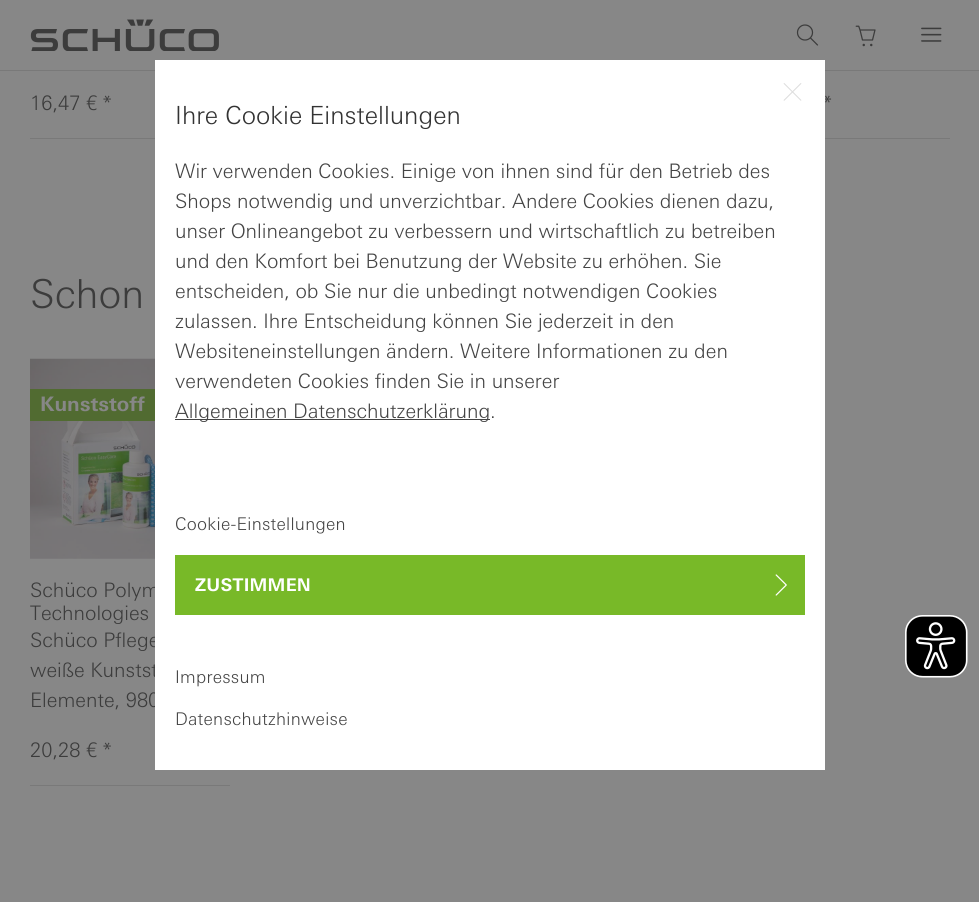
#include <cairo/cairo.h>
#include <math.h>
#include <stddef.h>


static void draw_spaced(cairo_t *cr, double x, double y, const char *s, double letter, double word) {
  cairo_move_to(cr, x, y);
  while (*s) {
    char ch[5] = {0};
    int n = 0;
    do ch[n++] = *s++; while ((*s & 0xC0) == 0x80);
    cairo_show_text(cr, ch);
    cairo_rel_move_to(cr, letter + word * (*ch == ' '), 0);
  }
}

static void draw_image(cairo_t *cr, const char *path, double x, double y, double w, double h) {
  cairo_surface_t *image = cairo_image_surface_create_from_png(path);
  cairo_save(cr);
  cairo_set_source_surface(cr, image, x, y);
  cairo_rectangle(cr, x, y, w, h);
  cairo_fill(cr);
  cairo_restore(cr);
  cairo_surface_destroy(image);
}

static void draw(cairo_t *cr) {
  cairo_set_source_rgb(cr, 135 / 255.0, 135 / 255.0, 135 / 255.0);
  cairo_paint(cr);
  cairo_set_source_rgb(cr, 121 / 255.0, 121 / 255.0, 121 / 255.0);
  cairo_rectangle(cr, 0, 70, 979, 1);
  cairo_fill(cr);
  draw_image(cr, "images/1.png", 30, 19, 189, 32);
  draw_image(cr, "images/2.png", 796, 24, 23, 22);
  draw_image(cr, "images/3.png", 855, 25, 21, 22);
  draw_image(cr, "images/4.png", 921, 27, 21, 15);
  cairo_rectangle(cr, 30, 138, 125, 1);
  cairo_fill(cr);
  cairo_rectangle(cr, 825, 138, 125, 1);
  cairo_fill(cr);
  draw_image(cr, "images/5.png", 30, 358, 125, 201);
  cairo_set_source_rgb(cr, 81 / 255.0, 107 / 255.0, 49 / 255.0);
  cairo_rectangle(cr, 30, 389, 125, 32);
  cairo_fill(cr);
  cairo_set_source_rgb(cr, 121 / 255.0, 121 / 255.0, 121 / 255.0);
  cairo_rectangle(cr, 30, 785, 200, 1);
  cairo_fill(cr);
  draw_image(cr, "images/8.png", 905, 615, 63, 63);
  cairo_select_font_face(cr, "Univers Light", CAIRO_FONT_SLANT_NORMAL, CAIRO_FONT_WEIGHT_NORMAL);
  cairo_set_font_size(cr, 20);
  cairo_set_source_rgb(cr, 60 / 255.0, 60 / 255.0, 60 / 255.0);
  cairo_move_to(cr, 30, 110);
  cairo_show_text(cr, "16,47 € *");
  cairo_move_to(cr, 823, 110);
  cairo_show_text(cr, "*");
  cairo_set_font_size(cr, 40);
  cairo_move_to(cr, 30, 308);
  cairo_show_text(cr, "Schon");
  cairo_select_font_face(cr, "Univers", CAIRO_FONT_SLANT_NORMAL, CAIRO_FONT_WEIGHT_BOLD);
  cairo_set_font_size(cr, 20);
  cairo_set_source_rgb(cr, 135 / 255.0, 135 / 255.0, 135 / 255.0);
  cairo_move_to(cr, 40, 411);
  cairo_show_text(cr, "Kunststoff");
  cairo_select_font_face(cr, "Univers Light", CAIRO_FONT_SLANT_NORMAL, CAIRO_FONT_WEIGHT_NORMAL);
  cairo_set_source_rgb(cr, 60 / 255.0, 60 / 255.0, 60 / 255.0);
  cairo_move_to(cr, 30, 597);
  cairo_show_text(cr, "Schüco Polym");
  cairo_move_to(cr, 30, 620);
  cairo_show_text(cr, "Technologies");
  cairo_move_to(cr, 30, 647);
  cairo_show_text(cr, "Schüco Pflege");
  cairo_move_to(cr, 30, 677);
  cairo_show_text(cr, "weiße Kunstst");
  cairo_move_to(cr, 30, 707);
  cairo_show_text(cr, "Elemente, 980");
  cairo_move_to(cr, 30, 757);
  cairo_show_text(cr, "20,28 € *");
  cairo_set_source_rgb(cr, 1, 1, 1);
  cairo_rectangle(cr, 155, 60, 670, 710);
  cairo_fill(cr);
  draw_image(cr, "images/6.png", 783, 83, 19, 18);
  cairo_set_font_size(cr, 25);
  cairo_set_source_rgb(cr, 51 / 255.0, 51 / 255.0, 51 / 255.0);
  cairo_move_to(cr, 175, 124);
  cairo_show_text(cr, "Ihre Cookie Einstellungen");
  cairo_set_font_size(cr, 20);
  cairo_set_source_rgb(cr, 68 / 255.0, 68 / 255.0, 68 / 255.0);
  cairo_move_to(cr, 175, 178);
  cairo_show_text(cr, "Wir verwenden Cookies. Einige von ihnen sind für den Betrieb des");
  cairo_move_to(cr, 175, 208);
  cairo_show_text(cr, "Shops notwendig und unverzichtbar. Andere Cookies dienen dazu,");
  cairo_move_to(cr, 175, 238);
  cairo_show_text(cr, "unser Onlineangebot zu verbessern und wirtschaftlich zu betreiben");
  cairo_move_to(cr, 175, 268);
  cairo_show_text(cr, "und den Komfort bei Benutzung der Website zu erhöhen. Sie");
  cairo_move_to(cr, 175, 298);
  cairo_show_text(cr, "entscheiden, ob Sie nur die unbedingt notwendigen Cookies");
  cairo_move_to(cr, 175, 328);
  cairo_show_text(cr, "zulassen. Ihre Entscheidung können Sie jederzeit in den");
  cairo_move_to(cr, 175, 358);
  cairo_show_text(cr, "Websiteneinstellungen ändern. Weitere Informationen zu den");
  cairo_move_to(cr, 175, 388);
  cairo_show_text(cr, "verwendeten Cookies finden Sie in unserer");
  cairo_rectangle(cr, 175, 419, 315, 1);
  cairo_fill(cr);
  cairo_move_to(cr, 175, 418);
  cairo_show_text(cr, "Allgemeinen Datenschutzerklärung");
  cairo_move_to(cr, 490, 418);
  cairo_show_text(cr, ".");
  cairo_set_font_size(cr, 17.5);
  draw_spaced(cr, 175, 530, "Cookie-Einstellungen", 0.25, 0);
  cairo_set_source_rgb(cr, 120 / 255.0, 185 / 255.0, 40 / 255.0);
  cairo_rectangle(cr, 175, 555, 630, 60);
  cairo_fill(cr);
  cairo_select_font_face(cr, "Univers", CAIRO_FONT_SLANT_NORMAL, CAIRO_FONT_WEIGHT_BOLD);
  cairo_set_source_rgb(cr, 1, 1, 1);
  draw_spaced(cr, 195, 591, "ZUSTIMMEN", 0.25, 0);
  draw_image(cr, "images/7.png", 775, 574, 12, 22);
  cairo_select_font_face(cr, "Univers Light", CAIRO_FONT_SLANT_NORMAL, CAIRO_FONT_WEIGHT_NORMAL);
  cairo_set_source_rgb(cr, 68 / 255.0, 68 / 255.0, 68 / 255.0);
  draw_spaced(cr, 175, 683, "Impressum", 0.25, 0);
  draw_spaced(cr, 175, 725, "Datenschutzhinweise", 0.25, 0);
}

int main(void) {
  cairo_surface_t *surface = cairo_image_surface_create(CAIRO_FORMAT_RGB24, 979, 902);
  cairo_t *cr = cairo_create(surface);
  cairo_font_options_t *options = cairo_font_options_create();
  cairo_font_options_set_hint_metrics(options, CAIRO_HINT_METRICS_OFF);
  cairo_font_options_set_hint_style(options, CAIRO_HINT_STYLE_NONE);
  cairo_set_font_options(cr, options);
  cairo_set_miter_limit(cr, 4);
  draw(cr);
  cairo_surface_write_to_png(surface, "out.png");
  cairo_font_options_destroy(options);
  cairo_destroy(cr);
  cairo_surface_destroy(surface);
  return 0;
}
